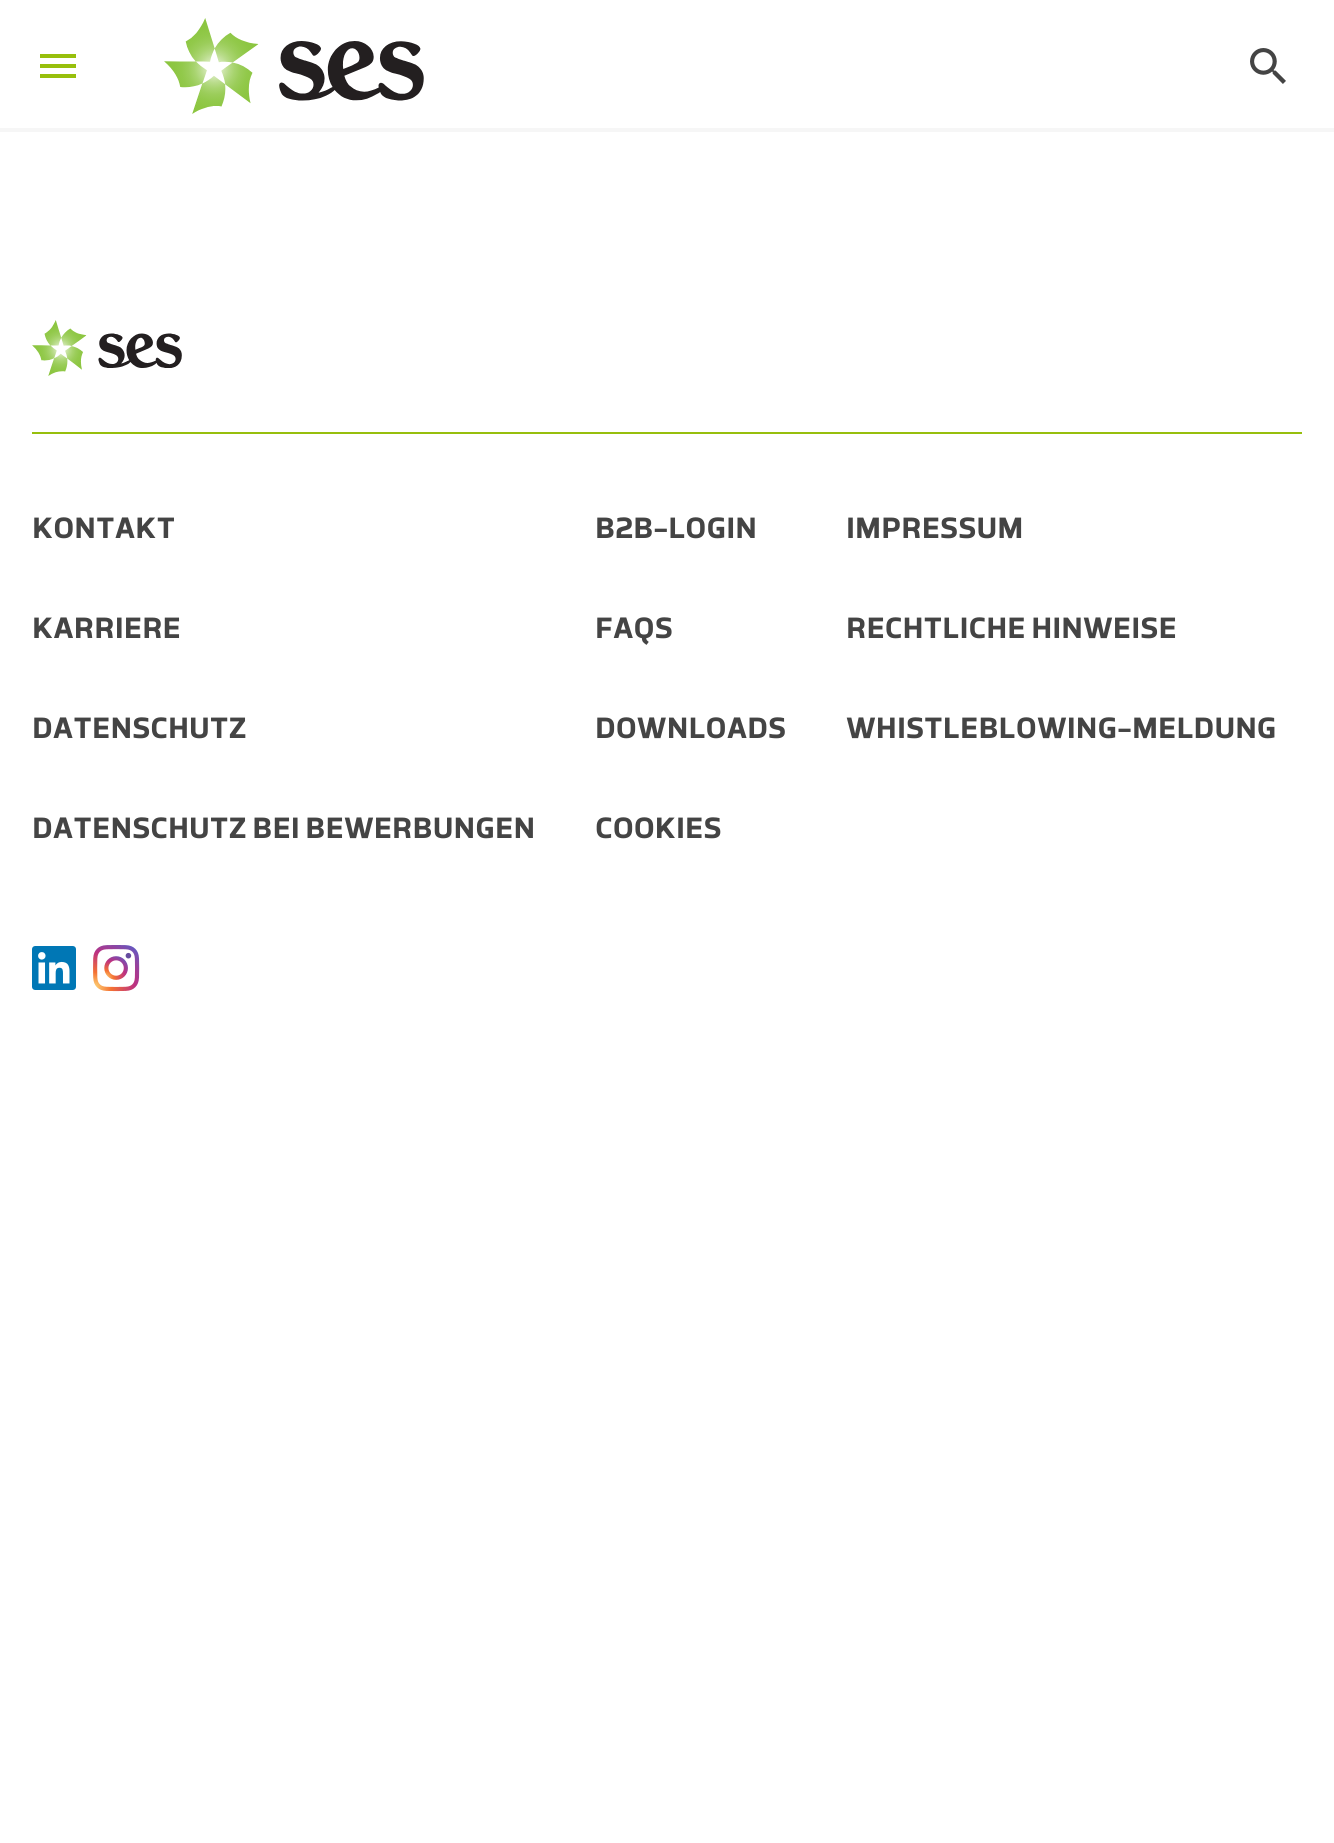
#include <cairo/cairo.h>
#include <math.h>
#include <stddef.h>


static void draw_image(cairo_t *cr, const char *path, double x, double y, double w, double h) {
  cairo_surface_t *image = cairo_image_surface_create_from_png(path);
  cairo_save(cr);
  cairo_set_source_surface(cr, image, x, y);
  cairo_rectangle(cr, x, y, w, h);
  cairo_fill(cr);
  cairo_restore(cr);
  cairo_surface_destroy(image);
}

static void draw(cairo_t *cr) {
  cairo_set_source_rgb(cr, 1, 1, 1);
  cairo_paint(cr);
  cairo_set_source_rgb(cr, 151 / 255.0, 191 / 255.0, 13 / 255.0);
  cairo_rectangle(cr, 40, 64, 36, 4);
  cairo_fill(cr);
  cairo_rectangle(cr, 40, 54, 36, 4);
  cairo_fill(cr);
  cairo_rectangle(cr, 40, 74, 36, 4);
  cairo_fill(cr);
  draw_image(cr, "images/1.png", 164, 18, 260, 96);
  draw_image(cr, "images/2.png", 1250, 48, 36, 36);
  cairo_set_source_rgb(cr, 246 / 255.0, 246 / 255.0, 246 / 255.0);
  cairo_rectangle(cr, 0, 128, 1334, 4);
  cairo_fill(cr);
  cairo_set_source_rgb(cr, 151 / 255.0, 191 / 255.0, 13 / 255.0);
  cairo_rectangle(cr, 32, 432, 1270, 2);
  cairo_fill(cr);
  draw_image(cr, "images/3.png", 32, 320, 150, 56);
  draw_image(cr, "images/4.png", 32, 946, 44, 44);
  draw_image(cr, "images/5.png", 93, 945, 47, 47);
  cairo_select_font_face(cr, "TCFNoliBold", CAIRO_FONT_SLANT_NORMAL, CAIRO_FONT_WEIGHT_BOLD);
  cairo_set_font_size(cr, 30);
  cairo_set_source_rgb(cr, 68 / 255.0, 68 / 255.0, 68 / 255.0);
  cairo_move_to(cr, 32, 538);
  cairo_show_text(cr, "KONTAKT");
  cairo_move_to(cr, 32, 638);
  cairo_show_text(cr, "KARRIERE");
  cairo_move_to(cr, 32, 738);
  cairo_show_text(cr, "DATENSCHUTZ");
  cairo_move_to(cr, 32, 838);
  cairo_show_text(cr, "DATENSCHUTZ BEI BEWERBUNGEN");
  cairo_move_to(cr, 595, 538);
  cairo_show_text(cr, "B2B-LOGIN");
  cairo_move_to(cr, 595, 638);
  cairo_show_text(cr, "FAQS");
  cairo_move_to(cr, 595, 738);
  cairo_show_text(cr, "DOWNLOADS");
  cairo_move_to(cr, 595, 838);
  cairo_show_text(cr, "COOKIES");
  cairo_move_to(cr, 846, 538);
  cairo_show_text(cr, "IMPRESSUM");
  cairo_move_to(cr, 846, 638);
  cairo_show_text(cr, "RECHTLICHE HINWEISE");
  cairo_move_to(cr, 846, 738);
  cairo_show_text(cr, "WHISTLEBLOWING-MELDUNG");
}

int main(void) {
  cairo_surface_t *surface = cairo_image_surface_create(CAIRO_FORMAT_RGB24, 1334, 1843);
  cairo_t *cr = cairo_create(surface);
  cairo_font_options_t *options = cairo_font_options_create();
  cairo_font_options_set_hint_metrics(options, CAIRO_HINT_METRICS_OFF);
  cairo_font_options_set_hint_style(options, CAIRO_HINT_STYLE_NONE);
  cairo_set_font_options(cr, options);
  cairo_set_miter_limit(cr, 4);
  draw(cr);
  cairo_surface_write_to_png(surface, "out.png");
  cairo_font_options_destroy(options);
  cairo_destroy(cr);
  cairo_surface_destroy(surface);
  return 0;
}
